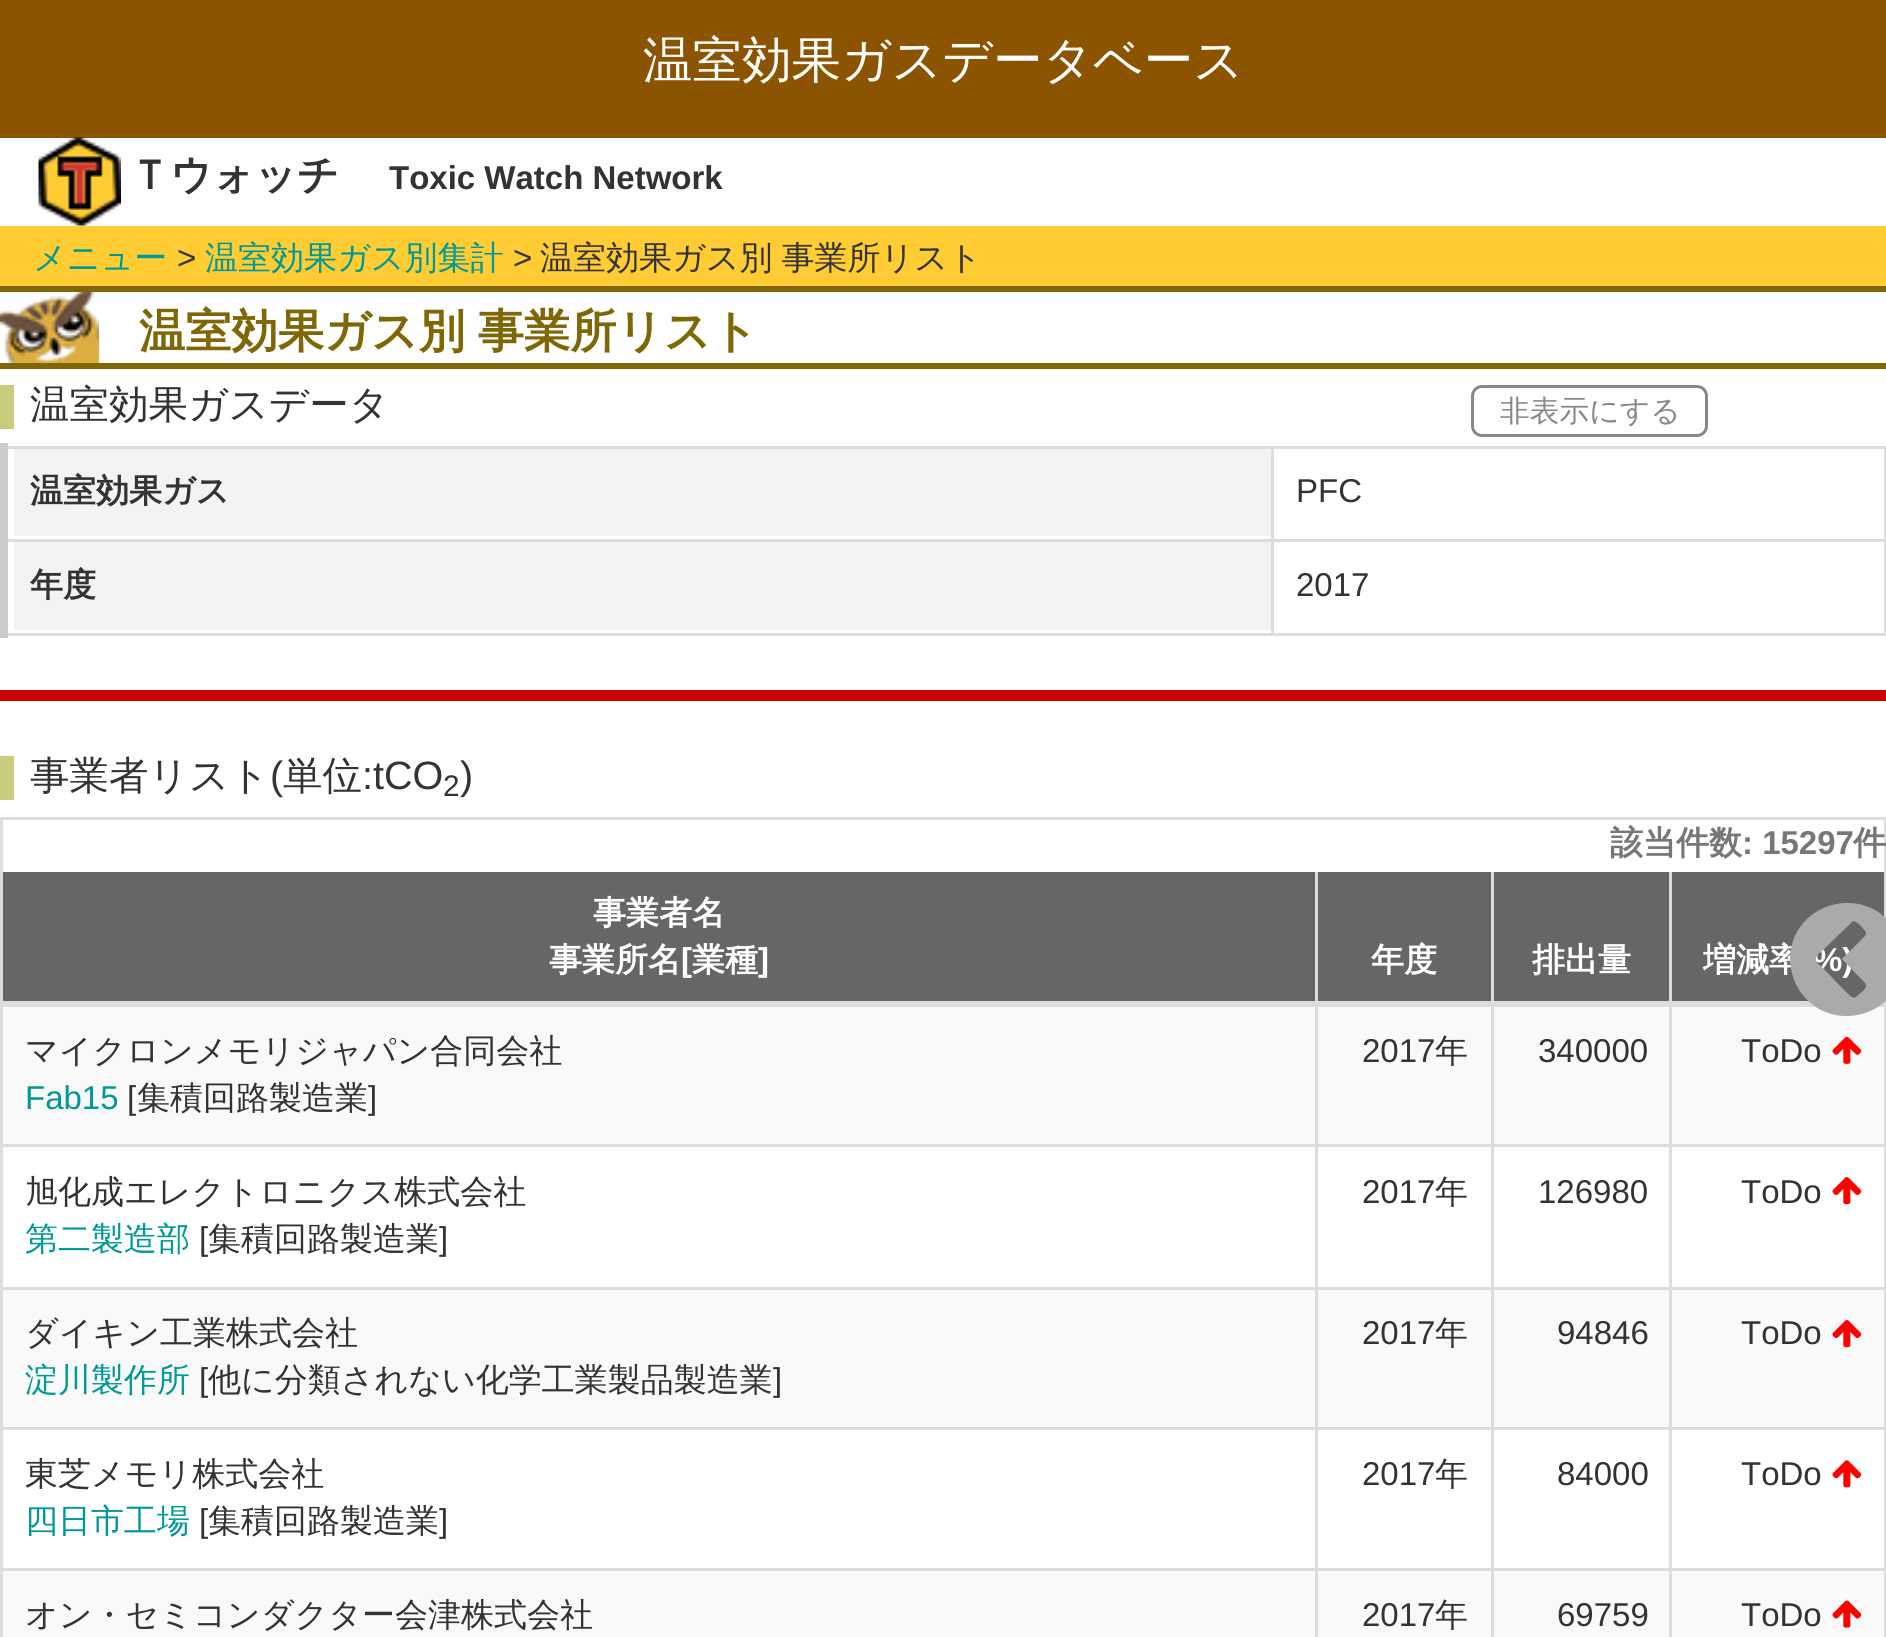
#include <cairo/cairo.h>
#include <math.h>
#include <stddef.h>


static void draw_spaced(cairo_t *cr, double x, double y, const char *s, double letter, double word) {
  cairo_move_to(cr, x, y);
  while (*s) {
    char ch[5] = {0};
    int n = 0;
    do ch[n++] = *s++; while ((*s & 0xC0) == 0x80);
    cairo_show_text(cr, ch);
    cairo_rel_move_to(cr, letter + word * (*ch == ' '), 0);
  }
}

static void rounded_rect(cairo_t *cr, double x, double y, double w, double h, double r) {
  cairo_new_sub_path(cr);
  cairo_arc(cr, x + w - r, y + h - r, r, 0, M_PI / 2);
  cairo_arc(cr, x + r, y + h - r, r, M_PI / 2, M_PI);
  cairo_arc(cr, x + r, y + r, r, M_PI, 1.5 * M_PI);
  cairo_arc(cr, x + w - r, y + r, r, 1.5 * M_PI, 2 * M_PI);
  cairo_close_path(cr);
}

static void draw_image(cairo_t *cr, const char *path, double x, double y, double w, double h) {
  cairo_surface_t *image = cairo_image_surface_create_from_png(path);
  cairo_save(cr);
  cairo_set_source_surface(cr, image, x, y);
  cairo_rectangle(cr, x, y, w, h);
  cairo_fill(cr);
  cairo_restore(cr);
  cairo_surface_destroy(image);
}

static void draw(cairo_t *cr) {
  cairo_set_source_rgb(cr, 1, 1, 1);
  cairo_paint(cr);
  cairo_set_source_rgb(cr, 140 / 255.0, 84 / 255.0, 0);
  cairo_rectangle(cr, 0, 0, 1886, 138);
  cairo_fill(cr);
  draw_image(cr, "images/1.png", 38, 137, 83, 89);
  cairo_set_source_rgb(cr, 1, 204 / 255.0, 51 / 255.0);
  cairo_rectangle(cr, 0, 226, 1886, 60);
  cairo_fill(cr);
  draw_image(cr, "images/2.png", 0, 292, 99, 71);
  cairo_set_source_rgb(cr, 127 / 255.0, 103 / 255.0, 6 / 255.0);
  cairo_rectangle(cr, 0, 286, 1886, 6);
  cairo_fill(cr);
  cairo_rectangle(cr, 0, 363, 1886, 6);
  cairo_fill(cr);
  cairo_set_source_rgb(cr, 203 / 255.0, 203 / 255.0, 124 / 255.0);
  cairo_rectangle(cr, 0, 385, 14, 44);
  cairo_fill(cr);
  rounded_rect(cr, 1472.5, 386.5, 234, 49, 9.5);
  cairo_set_source_rgb(cr, 136 / 255.0, 136 / 255.0, 136 / 255.0);
  cairo_set_line_width(cr, 3);
  cairo_stroke(cr);
  cairo_set_source_rgb(cr, 221 / 255.0, 221 / 255.0, 221 / 255.0);
  cairo_rectangle(cr, 0, 446, 1886, 3);
  cairo_fill(cr);
  cairo_rectangle(cr, 1884, 446, 2, 189);
  cairo_fill(cr);
  cairo_rectangle(cr, 0, 633, 1886, 3);
  cairo_fill(cr);
  cairo_set_source_rgb(cr, 243 / 255.0, 243 / 255.0, 243 / 255.0);
  cairo_rectangle(cr, 14, 449, 1257, 87);
  cairo_fill(cr);
  cairo_set_source_rgb(cr, 221 / 255.0, 221 / 255.0, 221 / 255.0);
  cairo_rectangle(cr, 1271, 539, 615, 3);
  cairo_fill(cr);
  cairo_rectangle(cr, 1271, 539, 3, 96);
  cairo_fill(cr);
  cairo_rectangle(cr, 3, 539, 1270, 3);
  cairo_fill(cr);
  cairo_rectangle(cr, 1271, 446, 3, 96);
  cairo_fill(cr);
  cairo_set_source_rgb(cr, 243 / 255.0, 243 / 255.0, 243 / 255.0);
  cairo_rectangle(cr, 14, 542, 1257, 88);
  cairo_fill(cr);
  cairo_set_source_rgb(cr, 204 / 255.0, 204 / 255.0, 204 / 255.0);
  cairo_rectangle(cr, 0, 443, 8, 195);
  cairo_fill(cr);
  cairo_set_source_rgb(cr, 204 / 255.0, 0, 0);
  cairo_rectangle(cr, 0, 690, 1886, 11);
  cairo_fill(cr);
  cairo_set_source_rgb(cr, 203 / 255.0, 203 / 255.0, 124 / 255.0);
  cairo_rectangle(cr, 0, 756, 14, 44);
  cairo_fill(cr);
  cairo_set_source_rgb(cr, 221 / 255.0, 221 / 255.0, 221 / 255.0);
  cairo_rectangle(cr, 0, 817, 1886, 3);
  cairo_fill(cr);
  cairo_rectangle(cr, 1884, 817, 2, 820);
  cairo_fill(cr);
  cairo_rectangle(cr, 0, 817, 3, 820);
  cairo_fill(cr);
  cairo_set_source_rgb(cr, 102 / 255.0, 102 / 255.0, 102 / 255.0);
  cairo_rectangle(cr, 3, 872, 1312, 129);
  cairo_fill(cr);
  cairo_rectangle(cr, 1318, 872, 173, 129);
  cairo_fill(cr);
  cairo_rectangle(cr, 1494, 872, 175, 129);
  cairo_fill(cr);
  cairo_rectangle(cr, 1672, 872, 212, 129);
  cairo_fill(cr);
  cairo_set_source_rgb(cr, 249 / 255.0, 249 / 255.0, 249 / 255.0);
  cairo_rectangle(cr, 3, 1007, 1881, 137);
  cairo_fill(cr);
  cairo_set_source_rgb(cr, 221 / 255.0, 221 / 255.0, 221 / 255.0);
  cairo_rectangle(cr, 1669, 1144, 217, 3);
  cairo_fill(cr);
  cairo_rectangle(cr, 1669, 1287, 217, 3);
  cairo_fill(cr);
  cairo_set_source_rgb(cr, 249 / 255.0, 249 / 255.0, 249 / 255.0);
  cairo_rectangle(cr, 3, 1290, 1881, 137);
  cairo_fill(cr);
  cairo_set_source_rgb(cr, 221 / 255.0, 221 / 255.0, 221 / 255.0);
  cairo_rectangle(cr, 1669, 1427, 217, 3);
  cairo_fill(cr);
  cairo_rectangle(cr, 1669, 1568, 217, 3);
  cairo_fill(cr);
  cairo_set_source_rgb(cr, 249 / 255.0, 249 / 255.0, 249 / 255.0);
  cairo_rectangle(cr, 3, 1571, 1881, 66);
  cairo_fill(cr);
  cairo_set_source_rgb(cr, 221 / 255.0, 221 / 255.0, 221 / 255.0);
  cairo_rectangle(cr, 1669, 1568, 3, 69);
  cairo_fill(cr);
  cairo_rectangle(cr, 1491, 1568, 181, 3);
  cairo_fill(cr);
  cairo_rectangle(cr, 1669, 1427, 3, 143);
  cairo_fill(cr);
  cairo_rectangle(cr, 1491, 1427, 181, 3);
  cairo_fill(cr);
  cairo_rectangle(cr, 1669, 1287, 3, 143);
  cairo_fill(cr);
  cairo_rectangle(cr, 1491, 1287, 181, 3);
  cairo_fill(cr);
  cairo_rectangle(cr, 1669, 1144, 3, 146);
  cairo_fill(cr);
  cairo_rectangle(cr, 1491, 1144, 181, 3);
  cairo_fill(cr);
  cairo_rectangle(cr, 1491, 1568, 3, 69);
  cairo_fill(cr);
  cairo_rectangle(cr, 1315, 1568, 178, 3);
  cairo_fill(cr);
  cairo_rectangle(cr, 1491, 1427, 3, 143);
  cairo_fill(cr);
  cairo_rectangle(cr, 1315, 1427, 178, 3);
  cairo_fill(cr);
  cairo_rectangle(cr, 1491, 1287, 3, 143);
  cairo_fill(cr);
  cairo_rectangle(cr, 1315, 1287, 178, 3);
  cairo_fill(cr);
  cairo_rectangle(cr, 1491, 1144, 3, 146);
  cairo_fill(cr);
  cairo_rectangle(cr, 1315, 1144, 178, 3);
  cairo_fill(cr);
  cairo_rectangle(cr, 1315, 1568, 3, 69);
  cairo_fill(cr);
  cairo_rectangle(cr, 0, 1568, 1317, 3);
  cairo_fill(cr);
  cairo_rectangle(cr, 1315, 1427, 3, 143);
  cairo_fill(cr);
  cairo_rectangle(cr, 0, 1427, 1317, 3);
  cairo_fill(cr);
  cairo_rectangle(cr, 1315, 1287, 3, 143);
  cairo_fill(cr);
  cairo_rectangle(cr, 0, 1287, 1317, 3);
  cairo_fill(cr);
  cairo_rectangle(cr, 1315, 1144, 3, 146);
  cairo_fill(cr);
  cairo_rectangle(cr, 0, 1144, 1317, 3);
  cairo_fill(cr);
  cairo_rectangle(cr, 1315, 872, 3, 275);
  cairo_fill(cr);
  cairo_rectangle(cr, 1491, 872, 3, 275);
  cairo_fill(cr);
  cairo_rectangle(cr, 1669, 872, 3, 275);
  cairo_fill(cr);
  cairo_rectangle(cr, 0, 1001, 1886, 6);
  cairo_fill(cr);
  draw_image(cr, "images/3.png", 1832, 1036, 30, 28);
  draw_image(cr, "images/4.png", 1832, 1177, 30, 28);
  draw_image(cr, "images/5.png", 1832, 1320, 30, 28);
  draw_image(cr, "images/6.png", 1832, 1460, 30, 28);
  draw_image(cr, "images/7.png", 1832, 1600, 30, 28);
  cairo_select_font_face(cr, "WenQuanYi Zen Hei Medium", CAIRO_FONT_SLANT_NORMAL, CAIRO_FONT_WEIGHT_NORMAL);
  cairo_set_font_size(cr, 49.5);
  cairo_set_source_rgb(cr, 1, 1, 1);
  cairo_move_to(cr, 643, 77);
  cairo_show_text(cr, "温室効果ガスデータベース");
  cairo_select_font_face(cr, "WenQuanYi Zen Hei", CAIRO_FONT_SLANT_NORMAL, CAIRO_FONT_WEIGHT_BOLD);
  cairo_set_font_size(cr, 41.25);
  cairo_set_source_rgb(cr, 51 / 255.0, 51 / 255.0, 51 / 255.0);
  cairo_move_to(cr, 129, 189);
  cairo_show_text(cr, "Ｔウォッチ");
  cairo_select_font_face(cr, "Liberation Sans", CAIRO_FONT_SLANT_NORMAL, CAIRO_FONT_WEIGHT_BOLD);
  cairo_set_font_size(cr, 33);
  cairo_move_to(cr, 389, 189);
  cairo_show_text(cr, "Toxic Watch Network");
  cairo_select_font_face(cr, "WenQuanYi Zen Hei Medium", CAIRO_FONT_SLANT_NORMAL, CAIRO_FONT_WEIGHT_NORMAL);
  cairo_set_source_rgb(cr, 0, 153 / 255.0, 153 / 255.0);
  cairo_move_to(cr, 33, 269);
  cairo_show_text(cr, "メニュー");
  cairo_select_font_face(cr, "Liberation Sans", CAIRO_FONT_SLANT_NORMAL, CAIRO_FONT_WEIGHT_NORMAL);
  cairo_set_source_rgb(cr, 51 / 255.0, 51 / 255.0, 51 / 255.0);
  cairo_move_to(cr, 177, 269);
  cairo_show_text(cr, ">");
  cairo_select_font_face(cr, "WenQuanYi Zen Hei Medium", CAIRO_FONT_SLANT_NORMAL, CAIRO_FONT_WEIGHT_NORMAL);
  cairo_set_source_rgb(cr, 0, 153 / 255.0, 153 / 255.0);
  cairo_move_to(cr, 205, 269);
  cairo_show_text(cr, "温室効果ガス別集計");
  cairo_select_font_face(cr, "Liberation Sans", CAIRO_FONT_SLANT_NORMAL, CAIRO_FONT_WEIGHT_NORMAL);
  cairo_set_source_rgb(cr, 51 / 255.0, 51 / 255.0, 51 / 255.0);
  cairo_move_to(cr, 513, 269);
  cairo_show_text(cr, ">");
  cairo_select_font_face(cr, "WenQuanYi Zen Hei Medium", CAIRO_FONT_SLANT_NORMAL, CAIRO_FONT_WEIGHT_NORMAL);
  draw_spaced(cr, 540, 269, "温室効果ガス別 事業所リスト", 0, -1);
  cairo_select_font_face(cr, "WenQuanYi Zen Hei", CAIRO_FONT_SLANT_NORMAL, CAIRO_FONT_WEIGHT_BOLD);
  cairo_set_font_size(cr, 46.25);
  cairo_set_source_rgb(cr, 127 / 255.0, 103 / 255.0, 6 / 255.0);
  draw_spaced(cr, 139, 347, "温室効果ガス別 事業所リスト", 0, -1);
  cairo_select_font_face(cr, "WenQuanYi Zen Hei Medium", CAIRO_FONT_SLANT_NORMAL, CAIRO_FONT_WEIGHT_NORMAL);
  cairo_set_font_size(cr, 39.5);
  cairo_set_source_rgb(cr, 51 / 255.0, 51 / 255.0, 51 / 255.0);
  cairo_move_to(cr, 30, 418);
  cairo_show_text(cr, "温室効果ガスデータ");
  cairo_set_font_size(cr, 29.75);
  cairo_set_source_rgb(cr, 136 / 255.0, 136 / 255.0, 136 / 255.0);
  cairo_move_to(cr, 1500, 421);
  cairo_show_text(cr, "非表示にする");
  cairo_select_font_face(cr, "WenQuanYi Zen Hei", CAIRO_FONT_SLANT_NORMAL, CAIRO_FONT_WEIGHT_BOLD);
  cairo_set_font_size(cr, 33);
  cairo_set_source_rgb(cr, 51 / 255.0, 51 / 255.0, 51 / 255.0);
  cairo_move_to(cr, 30, 502);
  cairo_show_text(cr, "温室効果ガス");
  cairo_select_font_face(cr, "Liberation Sans", CAIRO_FONT_SLANT_NORMAL, CAIRO_FONT_WEIGHT_NORMAL);
  cairo_move_to(cr, 1296, 502);
  cairo_show_text(cr, "PFC");
  cairo_select_font_face(cr, "WenQuanYi Zen Hei", CAIRO_FONT_SLANT_NORMAL, CAIRO_FONT_WEIGHT_BOLD);
  cairo_move_to(cr, 30, 596);
  cairo_show_text(cr, "年度");
  cairo_select_font_face(cr, "Liberation Sans", CAIRO_FONT_SLANT_NORMAL, CAIRO_FONT_WEIGHT_NORMAL);
  cairo_move_to(cr, 1296, 596);
  cairo_show_text(cr, "2017");
  cairo_select_font_face(cr, "WenQuanYi Zen Hei Medium", CAIRO_FONT_SLANT_NORMAL, CAIRO_FONT_WEIGHT_NORMAL);
  cairo_set_font_size(cr, 39.5);
  cairo_move_to(cr, 30, 789);
  cairo_show_text(cr, "事業者リスト");
  cairo_select_font_face(cr, "Liberation Sans", CAIRO_FONT_SLANT_NORMAL, CAIRO_FONT_WEIGHT_NORMAL);
  cairo_move_to(cr, 270, 789);
  cairo_show_text(cr, "(");
  cairo_select_font_face(cr, "WenQuanYi Zen Hei Medium", CAIRO_FONT_SLANT_NORMAL, CAIRO_FONT_WEIGHT_NORMAL);
  cairo_move_to(cr, 283, 789);
  cairo_show_text(cr, "単位");
  cairo_select_font_face(cr, "Liberation Sans", CAIRO_FONT_SLANT_NORMAL, CAIRO_FONT_WEIGHT_NORMAL);
  cairo_move_to(cr, 362, 789);
  cairo_show_text(cr, ":tCO");
  cairo_set_font_size(cr, 29.75);
  cairo_move_to(cr, 443, 796);
  cairo_show_text(cr, "2");
  cairo_set_font_size(cr, 39.5);
  cairo_move_to(cr, 460, 789);
  cairo_show_text(cr, ")");
  cairo_select_font_face(cr, "WenQuanYi Zen Hei", CAIRO_FONT_SLANT_NORMAL, CAIRO_FONT_WEIGHT_BOLD);
  cairo_set_font_size(cr, 33);
  cairo_set_source_rgb(cr, 119 / 255.0, 119 / 255.0, 119 / 255.0);
  cairo_move_to(cr, 1610, 854);
  cairo_show_text(cr, "該当件数");
  cairo_select_font_face(cr, "Liberation Sans", CAIRO_FONT_SLANT_NORMAL, CAIRO_FONT_WEIGHT_BOLD);
  cairo_move_to(cr, 1742, 854);
  cairo_show_text(cr, ": 15297");
  cairo_select_font_face(cr, "WenQuanYi Zen Hei", CAIRO_FONT_SLANT_NORMAL, CAIRO_FONT_WEIGHT_BOLD);
  cairo_move_to(cr, 1853, 854);
  cairo_show_text(cr, "件");
  cairo_set_source_rgb(cr, 1, 1, 1);
  cairo_move_to(cr, 593, 924);
  cairo_show_text(cr, "事業者名");
  cairo_move_to(cr, 549, 971);
  cairo_show_text(cr, "事業所名");
  cairo_select_font_face(cr, "Liberation Sans", CAIRO_FONT_SLANT_NORMAL, CAIRO_FONT_WEIGHT_BOLD);
  cairo_move_to(cr, 681, 971);
  cairo_show_text(cr, "[");
  cairo_select_font_face(cr, "WenQuanYi Zen Hei", CAIRO_FONT_SLANT_NORMAL, CAIRO_FONT_WEIGHT_BOLD);
  cairo_move_to(cr, 692, 971);
  cairo_show_text(cr, "業種");
  cairo_select_font_face(cr, "Liberation Sans", CAIRO_FONT_SLANT_NORMAL, CAIRO_FONT_WEIGHT_BOLD);
  cairo_move_to(cr, 758, 971);
  cairo_show_text(cr, "]");
  cairo_select_font_face(cr, "WenQuanYi Zen Hei", CAIRO_FONT_SLANT_NORMAL, CAIRO_FONT_WEIGHT_BOLD);
  cairo_move_to(cr, 1371, 971);
  cairo_show_text(cr, "年度");
  cairo_move_to(cr, 1532, 971);
  cairo_show_text(cr, "排出量");
  cairo_move_to(cr, 1703, 971);
  cairo_show_text(cr, "増減率");
  cairo_select_font_face(cr, "Liberation Sans", CAIRO_FONT_SLANT_NORMAL, CAIRO_FONT_WEIGHT_BOLD);
  cairo_move_to(cr, 1813, 971);
  cairo_show_text(cr, "%)");
  cairo_select_font_face(cr, "WenQuanYi Zen Hei Medium", CAIRO_FONT_SLANT_NORMAL, CAIRO_FONT_WEIGHT_NORMAL);
  cairo_set_source_rgb(cr, 51 / 255.0, 51 / 255.0, 51 / 255.0);
  cairo_move_to(cr, 25, 1062);
  cairo_show_text(cr, "マイクロンメモリジャパン合同会社");
  cairo_select_font_face(cr, "Liberation Sans", CAIRO_FONT_SLANT_NORMAL, CAIRO_FONT_WEIGHT_NORMAL);
  cairo_set_source_rgb(cr, 0, 153 / 255.0, 153 / 255.0);
  cairo_move_to(cr, 25, 1109);
  cairo_show_text(cr, "Fab15");
  cairo_set_source_rgb(cr, 51 / 255.0, 51 / 255.0, 51 / 255.0);
  cairo_move_to(cr, 127, 1109);
  cairo_show_text(cr, "[");
  cairo_select_font_face(cr, "WenQuanYi Zen Hei Medium", CAIRO_FONT_SLANT_NORMAL, CAIRO_FONT_WEIGHT_NORMAL);
  cairo_move_to(cr, 137, 1109);
  cairo_show_text(cr, "集積回路製造業");
  cairo_select_font_face(cr, "Liberation Sans", CAIRO_FONT_SLANT_NORMAL, CAIRO_FONT_WEIGHT_NORMAL);
  cairo_move_to(cr, 368, 1109);
  cairo_show_text(cr, "]");
  cairo_move_to(cr, 1362, 1062);
  cairo_show_text(cr, "2017");
  cairo_select_font_face(cr, "WenQuanYi Zen Hei Medium", CAIRO_FONT_SLANT_NORMAL, CAIRO_FONT_WEIGHT_NORMAL);
  cairo_move_to(cr, 1435, 1062);
  cairo_show_text(cr, "年");
  cairo_select_font_face(cr, "Liberation Sans", CAIRO_FONT_SLANT_NORMAL, CAIRO_FONT_WEIGHT_NORMAL);
  cairo_move_to(cr, 1538, 1062);
  cairo_show_text(cr, "340000");
  cairo_move_to(cr, 1741, 1062);
  cairo_show_text(cr, "ToDo");
  cairo_select_font_face(cr, "WenQuanYi Zen Hei Medium", CAIRO_FONT_SLANT_NORMAL, CAIRO_FONT_WEIGHT_NORMAL);
  cairo_move_to(cr, 25, 1203);
  cairo_show_text(cr, "旭化成エレクトロニクス株式会社");
  cairo_set_source_rgb(cr, 0, 153 / 255.0, 153 / 255.0);
  cairo_move_to(cr, 25, 1250);
  cairo_show_text(cr, "第二製造部");
  cairo_select_font_face(cr, "Liberation Sans", CAIRO_FONT_SLANT_NORMAL, CAIRO_FONT_WEIGHT_NORMAL);
  cairo_set_source_rgb(cr, 51 / 255.0, 51 / 255.0, 51 / 255.0);
  cairo_move_to(cr, 199, 1250);
  cairo_show_text(cr, "[");
  cairo_select_font_face(cr, "WenQuanYi Zen Hei Medium", CAIRO_FONT_SLANT_NORMAL, CAIRO_FONT_WEIGHT_NORMAL);
  cairo_move_to(cr, 208, 1250);
  cairo_show_text(cr, "集積回路製造業");
  cairo_select_font_face(cr, "Liberation Sans", CAIRO_FONT_SLANT_NORMAL, CAIRO_FONT_WEIGHT_NORMAL);
  cairo_move_to(cr, 439, 1250);
  cairo_show_text(cr, "]");
  cairo_move_to(cr, 1362, 1203);
  cairo_show_text(cr, "2017");
  cairo_select_font_face(cr, "WenQuanYi Zen Hei Medium", CAIRO_FONT_SLANT_NORMAL, CAIRO_FONT_WEIGHT_NORMAL);
  cairo_move_to(cr, 1435, 1203);
  cairo_show_text(cr, "年");
  cairo_select_font_face(cr, "Liberation Sans", CAIRO_FONT_SLANT_NORMAL, CAIRO_FONT_WEIGHT_NORMAL);
  cairo_move_to(cr, 1538, 1203);
  cairo_show_text(cr, "126980");
  cairo_move_to(cr, 1741, 1203);
  cairo_show_text(cr, "ToDo");
  cairo_select_font_face(cr, "WenQuanYi Zen Hei Medium", CAIRO_FONT_SLANT_NORMAL, CAIRO_FONT_WEIGHT_NORMAL);
  cairo_move_to(cr, 25, 1344);
  cairo_show_text(cr, "ダイキン工業株式会社");
  cairo_set_source_rgb(cr, 0, 153 / 255.0, 153 / 255.0);
  cairo_move_to(cr, 25, 1391);
  cairo_show_text(cr, "淀川製作所");
  cairo_select_font_face(cr, "Liberation Sans", CAIRO_FONT_SLANT_NORMAL, CAIRO_FONT_WEIGHT_NORMAL);
  cairo_set_source_rgb(cr, 51 / 255.0, 51 / 255.0, 51 / 255.0);
  cairo_move_to(cr, 199, 1391);
  cairo_show_text(cr, "[");
  cairo_select_font_face(cr, "WenQuanYi Zen Hei Medium", CAIRO_FONT_SLANT_NORMAL, CAIRO_FONT_WEIGHT_NORMAL);
  cairo_move_to(cr, 208, 1391);
  cairo_show_text(cr, "他に分類されない化学工業製品製造業");
  cairo_select_font_face(cr, "Liberation Sans", CAIRO_FONT_SLANT_NORMAL, CAIRO_FONT_WEIGHT_NORMAL);
  cairo_move_to(cr, 773, 1391);
  cairo_show_text(cr, "]");
  cairo_move_to(cr, 1362, 1344);
  cairo_show_text(cr, "2017");
  cairo_select_font_face(cr, "WenQuanYi Zen Hei Medium", CAIRO_FONT_SLANT_NORMAL, CAIRO_FONT_WEIGHT_NORMAL);
  cairo_move_to(cr, 1435, 1344);
  cairo_show_text(cr, "年");
  cairo_select_font_face(cr, "Liberation Sans", CAIRO_FONT_SLANT_NORMAL, CAIRO_FONT_WEIGHT_NORMAL);
  cairo_move_to(cr, 1557, 1344);
  cairo_show_text(cr, "94846");
  cairo_move_to(cr, 1741, 1344);
  cairo_show_text(cr, "ToDo");
  cairo_select_font_face(cr, "WenQuanYi Zen Hei Medium", CAIRO_FONT_SLANT_NORMAL, CAIRO_FONT_WEIGHT_NORMAL);
  cairo_move_to(cr, 25, 1485);
  cairo_show_text(cr, "東芝メモリ株式会社");
  cairo_set_source_rgb(cr, 0, 153 / 255.0, 153 / 255.0);
  cairo_move_to(cr, 25, 1532);
  cairo_show_text(cr, "四日市工場");
  cairo_select_font_face(cr, "Liberation Sans", CAIRO_FONT_SLANT_NORMAL, CAIRO_FONT_WEIGHT_NORMAL);
  cairo_set_source_rgb(cr, 51 / 255.0, 51 / 255.0, 51 / 255.0);
  cairo_move_to(cr, 199, 1532);
  cairo_show_text(cr, "[");
  cairo_select_font_face(cr, "WenQuanYi Zen Hei Medium", CAIRO_FONT_SLANT_NORMAL, CAIRO_FONT_WEIGHT_NORMAL);
  cairo_move_to(cr, 208, 1532);
  cairo_show_text(cr, "集積回路製造業");
  cairo_select_font_face(cr, "Liberation Sans", CAIRO_FONT_SLANT_NORMAL, CAIRO_FONT_WEIGHT_NORMAL);
  cairo_move_to(cr, 439, 1532);
  cairo_show_text(cr, "]");
  cairo_move_to(cr, 1362, 1485);
  cairo_show_text(cr, "2017");
  cairo_select_font_face(cr, "WenQuanYi Zen Hei Medium", CAIRO_FONT_SLANT_NORMAL, CAIRO_FONT_WEIGHT_NORMAL);
  cairo_move_to(cr, 1435, 1485);
  cairo_show_text(cr, "年");
  cairo_select_font_face(cr, "Liberation Sans", CAIRO_FONT_SLANT_NORMAL, CAIRO_FONT_WEIGHT_NORMAL);
  cairo_move_to(cr, 1557, 1485);
  cairo_show_text(cr, "84000");
  cairo_move_to(cr, 1741, 1485);
  cairo_show_text(cr, "ToDo");
  cairo_select_font_face(cr, "WenQuanYi Zen Hei Medium", CAIRO_FONT_SLANT_NORMAL, CAIRO_FONT_WEIGHT_NORMAL);
  cairo_move_to(cr, 25, 1626);
  cairo_show_text(cr, "オン・セミコンダクター会津株式会社");
  cairo_select_font_face(cr, "Liberation Sans", CAIRO_FONT_SLANT_NORMAL, CAIRO_FONT_WEIGHT_NORMAL);
  cairo_move_to(cr, 1362, 1626);
  cairo_show_text(cr, "2017");
  cairo_select_font_face(cr, "WenQuanYi Zen Hei Medium", CAIRO_FONT_SLANT_NORMAL, CAIRO_FONT_WEIGHT_NORMAL);
  cairo_move_to(cr, 1435, 1626);
  cairo_show_text(cr, "年");
  cairo_select_font_face(cr, "Liberation Sans", CAIRO_FONT_SLANT_NORMAL, CAIRO_FONT_WEIGHT_NORMAL);
  cairo_move_to(cr, 1557, 1626);
  cairo_show_text(cr, "69759");
  cairo_move_to(cr, 1741, 1626);
  cairo_show_text(cr, "ToDo");
  cairo_set_source_rgb(cr, 170 / 255.0, 170 / 255.0, 170 / 255.0);
  cairo_new_path(cr);
  cairo_move_to(cr, 1857, 996);
  cairo_curve_to(cr, 1860, 993, 1869, 988, 1865, 983);
  cairo_line_to(cr, 1842, 959);
  cairo_line_to(cr, 1865, 936);
  cairo_curve_to(cr, 1866, 935, 1866, 933, 1866, 932);
  cairo_line_to(cr, 1860, 925);
  cairo_curve_to(cr, 1857, 923, 1854, 919, 1851, 923);
  cairo_line_to(cr, 1823, 950);
  cairo_curve_to(cr, 1822, 951, 1816, 955, 1816, 958);
  cairo_curve_to(cr, 1815, 963, 1821, 966, 1823, 968);
  cairo_line_to(cr, 1845, 991);
  cairo_curve_to(cr, 1848, 993, 1853, 1001, 1857, 996);
  cairo_close_path(cr);
  cairo_move_to(cr, 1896, 931);
  cairo_curve_to(cr, 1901, 941, 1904, 952, 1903, 963);
  cairo_curve_to(cr, 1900, 1019, 1826, 1036, 1798, 988);
  cairo_curve_to(cr, 1792, 978, 1790, 967, 1790, 956);
  cairo_curve_to(cr, 1794, 900, 1868, 883, 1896, 931);
  cairo_close_path(cr);
  cairo_fill(cr);
}

int main(void) {
  cairo_surface_t *surface = cairo_image_surface_create(CAIRO_FORMAT_RGB24, 1886, 1637);
  cairo_t *cr = cairo_create(surface);
  cairo_font_options_t *options = cairo_font_options_create();
  cairo_font_options_set_hint_metrics(options, CAIRO_HINT_METRICS_OFF);
  cairo_font_options_set_hint_style(options, CAIRO_HINT_STYLE_NONE);
  cairo_set_font_options(cr, options);
  cairo_set_miter_limit(cr, 4);
  draw(cr);
  cairo_surface_write_to_png(surface, "out.png");
  cairo_font_options_destroy(options);
  cairo_destroy(cr);
  cairo_surface_destroy(surface);
  return 0;
}
